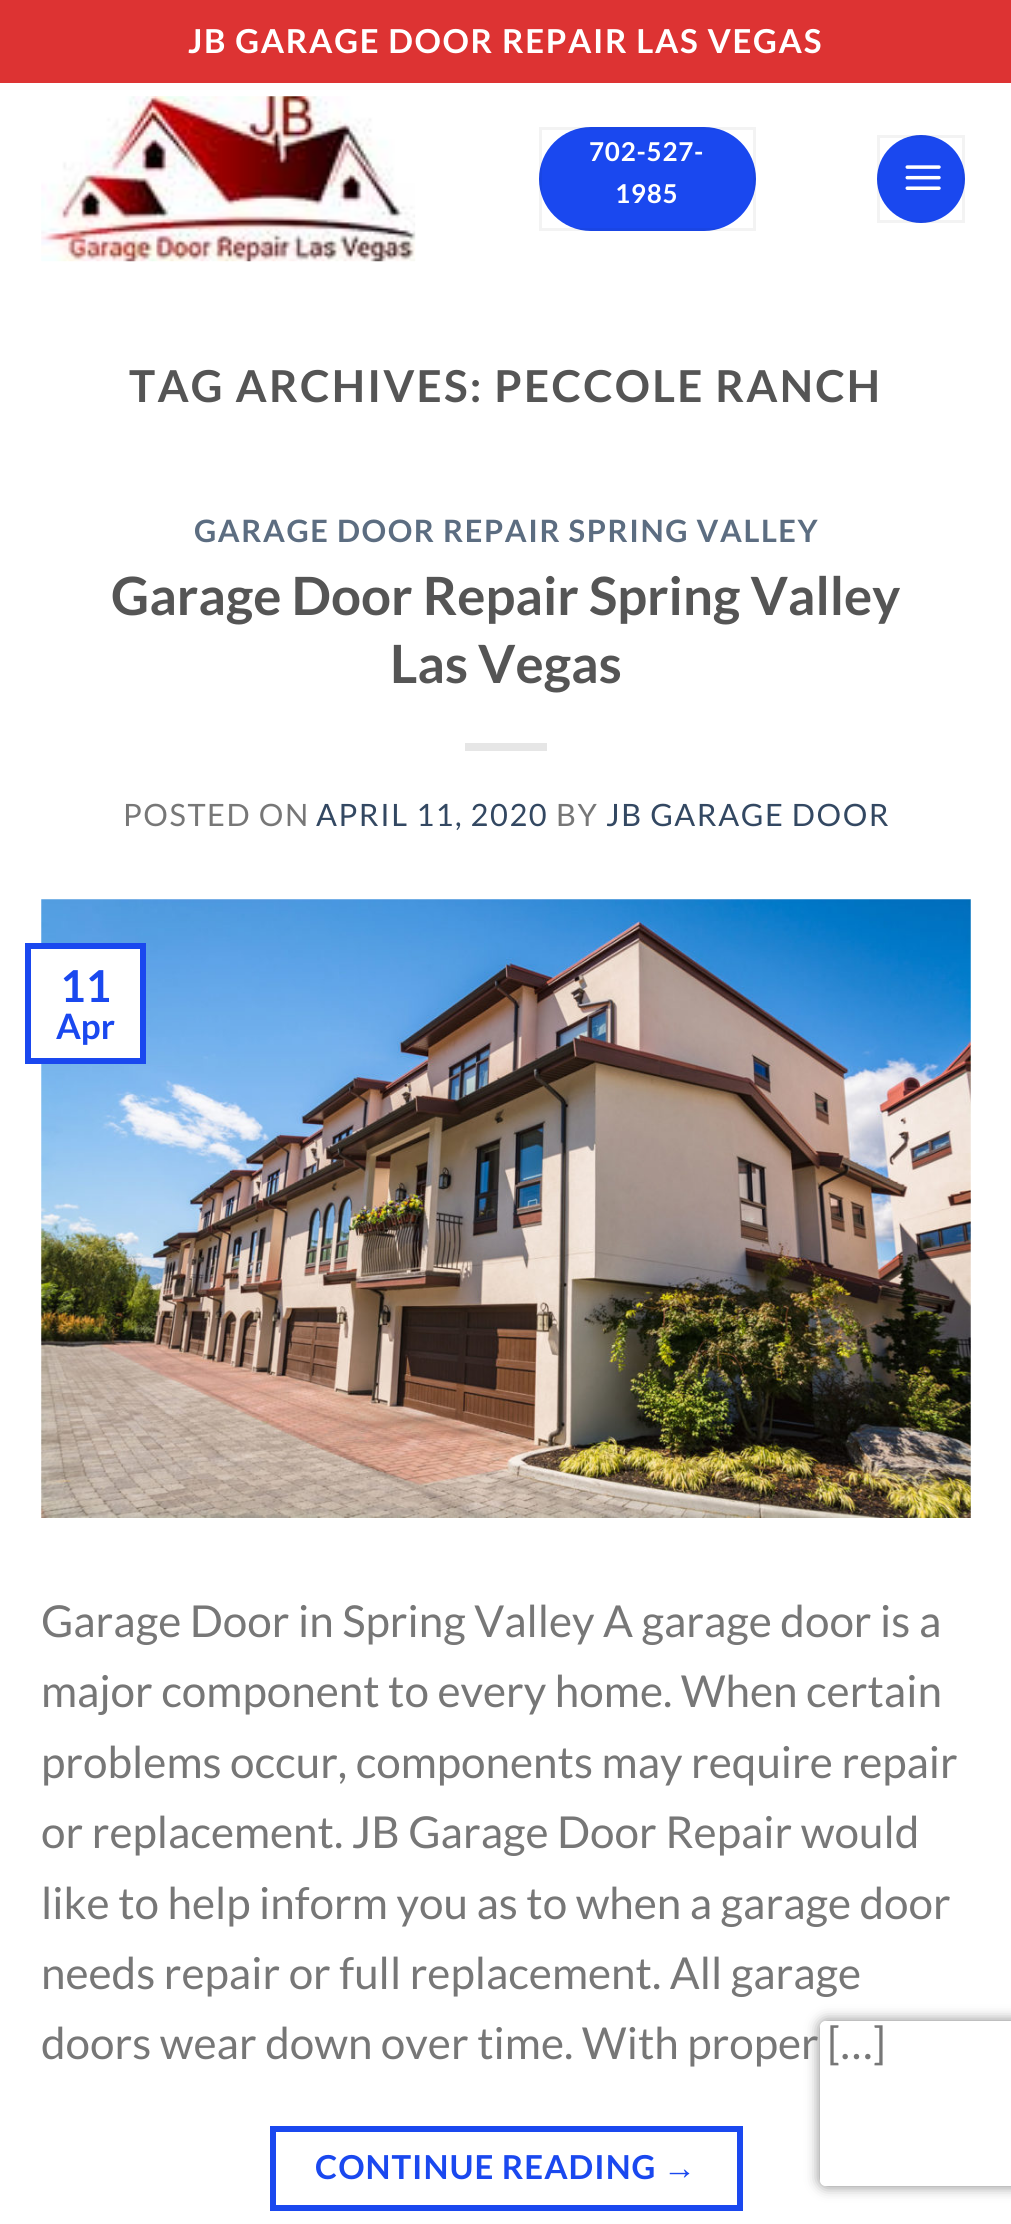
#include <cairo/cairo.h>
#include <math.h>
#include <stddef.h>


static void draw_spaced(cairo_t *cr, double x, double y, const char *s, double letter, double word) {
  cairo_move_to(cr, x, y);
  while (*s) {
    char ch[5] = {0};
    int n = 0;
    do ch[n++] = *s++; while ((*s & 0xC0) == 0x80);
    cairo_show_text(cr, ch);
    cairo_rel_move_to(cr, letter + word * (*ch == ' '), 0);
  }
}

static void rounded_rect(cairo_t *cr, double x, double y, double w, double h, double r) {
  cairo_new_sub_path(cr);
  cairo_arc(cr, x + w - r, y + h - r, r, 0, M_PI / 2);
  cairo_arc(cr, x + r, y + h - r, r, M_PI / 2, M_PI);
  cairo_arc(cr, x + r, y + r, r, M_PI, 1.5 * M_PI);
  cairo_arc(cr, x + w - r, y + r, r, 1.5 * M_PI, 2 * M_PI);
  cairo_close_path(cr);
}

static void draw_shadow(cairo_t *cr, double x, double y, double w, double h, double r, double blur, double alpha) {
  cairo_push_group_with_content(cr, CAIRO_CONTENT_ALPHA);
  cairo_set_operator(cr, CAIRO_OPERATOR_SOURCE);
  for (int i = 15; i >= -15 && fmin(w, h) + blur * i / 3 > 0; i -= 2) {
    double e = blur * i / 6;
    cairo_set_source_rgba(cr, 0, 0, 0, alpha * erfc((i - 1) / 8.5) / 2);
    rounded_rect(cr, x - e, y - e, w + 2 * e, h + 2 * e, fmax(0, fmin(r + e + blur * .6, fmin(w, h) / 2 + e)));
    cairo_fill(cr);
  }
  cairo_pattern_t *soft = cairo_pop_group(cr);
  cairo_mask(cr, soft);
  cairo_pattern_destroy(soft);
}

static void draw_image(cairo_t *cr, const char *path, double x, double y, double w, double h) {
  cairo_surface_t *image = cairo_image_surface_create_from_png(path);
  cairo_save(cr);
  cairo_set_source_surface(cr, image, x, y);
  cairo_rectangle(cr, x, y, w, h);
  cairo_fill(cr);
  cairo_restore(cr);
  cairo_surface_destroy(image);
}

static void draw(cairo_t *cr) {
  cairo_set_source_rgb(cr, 1, 1, 1);
  cairo_paint(cr);
  cairo_set_source_rgb(cr, 221 / 255.0, 51 / 255.0, 51 / 255.0);
  cairo_rectangle(cr, 0, 0, 1011, 83);
  cairo_fill(cr);
  draw_image(cr, "images/1.png", 41, 96, 375, 166);
  cairo_set_source_rgb(cr, 26 / 255.0, 72 / 255.0, 239 / 255.0);
  rounded_rect(cr, 539, 127, 217, 104, 52);
  cairo_fill(cr);
  cairo_rectangle(cr, 540.5, 128.5, 214, 101);
  cairo_set_source_rgba(cr, 0, 0, 0, 0.05);
  cairo_set_line_width(cr, 3);
  cairo_stroke(cr);
  cairo_set_source_rgb(cr, 26 / 255.0, 72 / 255.0, 239 / 255.0);
  cairo_arc(cr, 921, 179, 44, 0, 2 * M_PI);
  cairo_fill(cr);
  cairo_rectangle(cr, 878.5, 136.5, 85, 85);
  cairo_set_source_rgba(cr, 0, 0, 0, 0.05);
  cairo_stroke(cr);
  draw_image(cr, "images/2.png", 905, 165, 36, 25);
  cairo_set_source_rgb(cr, 230 / 255.0, 230 / 255.0, 230 / 255.0);
  cairo_rectangle(cr, 465, 743, 82, 8);
  cairo_fill(cr);
  draw_image(cr, "images/3.png", 41, 899, 930, 619);
  cairo_set_source_rgb(cr, 1, 1, 1);
  cairo_rectangle(cr, 41, 949, 99, 109);
  cairo_fill(cr);
  cairo_rectangle(cr, 28, 946, 115, 115);
  cairo_set_source_rgb(cr, 26 / 255.0, 72 / 255.0, 239 / 255.0);
  cairo_set_line_width(cr, 6);
  cairo_stroke(cr);
  cairo_rectangle(cr, 273, 2129, 467, 79);
  cairo_stroke(cr);
  cairo_save(cr);
  cairo_set_fill_rule(cr, CAIRO_FILL_RULE_EVEN_ODD);
  cairo_new_path(cr);
  cairo_move_to(cr, 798, 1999);
  cairo_line_to(cr, 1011, 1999);
  cairo_line_to(cr, 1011, 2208);
  cairo_line_to(cr, 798, 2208);
  cairo_close_path(cr);
  cairo_move_to(cr, 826, 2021);
  cairo_line_to(cr, 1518, 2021);
  cairo_curve_to(cr, 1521.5, 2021, 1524, 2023.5, 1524, 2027);
  cairo_line_to(cr, 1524, 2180);
  cairo_curve_to(cr, 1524, 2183.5, 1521.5, 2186, 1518, 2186);
  cairo_line_to(cr, 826, 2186);
  cairo_curve_to(cr, 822.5, 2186, 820, 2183.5, 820, 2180);
  cairo_line_to(cr, 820, 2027);
  cairo_curve_to(cr, 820, 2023.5, 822.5, 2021, 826, 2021);
  cairo_close_path(cr);
  cairo_clip(cr);
  cairo_set_source_rgb(cr, 128 / 255.0, 128 / 255.0, 128 / 255.0);
  draw_shadow(cr, 820, 2021, 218, 165, 6, 7, 1);
  cairo_restore(cr);
  cairo_select_font_face(cr, "Lato", CAIRO_FONT_SLANT_NORMAL, CAIRO_FONT_WEIGHT_BOLD);
  cairo_set_font_size(cr, 33);
  cairo_set_source_rgb(cr, 1, 1, 1);
  draw_spaced(cr, 188, 53, "JB GARAGE DOOR REPAIR LAS VEGAS", 1.65, 0);
  cairo_set_font_size(cr, 26);
  draw_spaced(cr, 589, 161, "702-527-", 0.75, 0);
  draw_spaced(cr, 615, 203, "1985", 0.75, 0);
  cairo_set_font_size(cr, 44);
  cairo_set_source_rgb(cr, 85 / 255.0, 85 / 255.0, 85 / 255.0);
  draw_spaced(cr, 129, 402, "TAG ARCHIVES: PECCOLE RANCH", 2.2, 0);
  cairo_set_font_size(cr, 30.8);
  cairo_set_source_rgb(cr, 92 / 255.0, 109 / 255.0, 129 / 255.0);
  draw_spaced(cr, 194, 542, "GARAGE DOOR REPAIR SPRING VALLEY", 1.55, 0);
  cairo_set_font_size(cr, 52.75);
  cairo_set_source_rgb(cr, 85 / 255.0, 85 / 255.0, 85 / 255.0);
  cairo_move_to(cr, 111, 615);
  cairo_show_text(cr, "Garage Door Repair Spring Valley");
  cairo_move_to(cr, 390, 683);
  cairo_show_text(cr, "Las Vegas");
  cairo_select_font_face(cr, "Lato", CAIRO_FONT_SLANT_NORMAL, CAIRO_FONT_WEIGHT_NORMAL);
  cairo_set_font_size(cr, 30.8);
  cairo_set_source_rgb(cr, 119 / 255.0, 119 / 255.0, 119 / 255.0);
  draw_spaced(cr, 123, 826, "POSTED ON", 1.55, 0);
  cairo_set_source_rgb(cr, 51 / 255.0, 72 / 255.0, 98 / 255.0);
  draw_spaced(cr, 316, 826, "APRIL 11, 2020", 1.55, 0);
  cairo_set_source_rgb(cr, 119 / 255.0, 119 / 255.0, 119 / 255.0);
  draw_spaced(cr, 556, 826, "BY", 1.55, 0);
  cairo_set_source_rgb(cr, 51 / 255.0, 72 / 255.0, 98 / 255.0);
  draw_spaced(cr, 606, 826, "JB GARAGE DOOR", 1.55, 0);
  cairo_select_font_face(cr, "Lato", CAIRO_FONT_SLANT_NORMAL, CAIRO_FONT_WEIGHT_BOLD);
  cairo_set_font_size(cr, 44);
  cairo_set_source_rgb(cr, 26 / 255.0, 72 / 255.0, 239 / 255.0);
  cairo_move_to(cr, 60, 1002);
  cairo_show_text(cr, "11");
  cairo_set_font_size(cr, 35);
  cairo_move_to(cr, 56, 1039);
  cairo_show_text(cr, "Apr");
  cairo_select_font_face(cr, "Lato", CAIRO_FONT_SLANT_NORMAL, CAIRO_FONT_WEIGHT_NORMAL);
  cairo_set_font_size(cr, 44);
  cairo_set_source_rgb(cr, 119 / 255.0, 119 / 255.0, 119 / 255.0);
  cairo_move_to(cr, 41, 1637);
  cairo_show_text(cr, "Garage Door in Spring Valley A garage door is a");
  cairo_move_to(cr, 41, 1707);
  cairo_show_text(cr, "major component to every home. When certain");
  cairo_move_to(cr, 41, 1778);
  cairo_show_text(cr, "problems occur, components may require repair");
  cairo_move_to(cr, 41, 1848);
  cairo_show_text(cr, "or replacement. JB Garage Door Repair would");
  cairo_move_to(cr, 41, 1919);
  cairo_show_text(cr, "like to help inform you as to when a garage door");
  cairo_move_to(cr, 41, 1989);
  cairo_show_text(cr, "needs repair or full replacement. All garage");
  cairo_move_to(cr, 41, 2059);
  cairo_show_text(cr, "doors wear down over time. With proper […]");
  cairo_select_font_face(cr, "Lato", CAIRO_FONT_SLANT_NORMAL, CAIRO_FONT_WEIGHT_BOLD);
  cairo_set_font_size(cr, 33);
  cairo_set_source_rgb(cr, 26 / 255.0, 72 / 255.0, 239 / 255.0);
  draw_spaced(cr, 315, 2179, "CONTINUE READING", 1, 0);
  cairo_select_font_face(cr, "Liberation Sans", CAIRO_FONT_SLANT_NORMAL, CAIRO_FONT_WEIGHT_BOLD);
  draw_spaced(cr, 663, 2179, "→", 1, 0);
}

int main(void) {
  cairo_surface_t *surface = cairo_image_surface_create(CAIRO_FORMAT_RGB24, 1011, 2224);
  cairo_t *cr = cairo_create(surface);
  cairo_font_options_t *options = cairo_font_options_create();
  cairo_font_options_set_hint_metrics(options, CAIRO_HINT_METRICS_OFF);
  cairo_font_options_set_hint_style(options, CAIRO_HINT_STYLE_NONE);
  cairo_set_font_options(cr, options);
  cairo_set_miter_limit(cr, 4);
  draw(cr);
  cairo_surface_write_to_png(surface, "out.png");
  cairo_font_options_destroy(options);
  cairo_destroy(cr);
  cairo_surface_destroy(surface);
  return 0;
}
